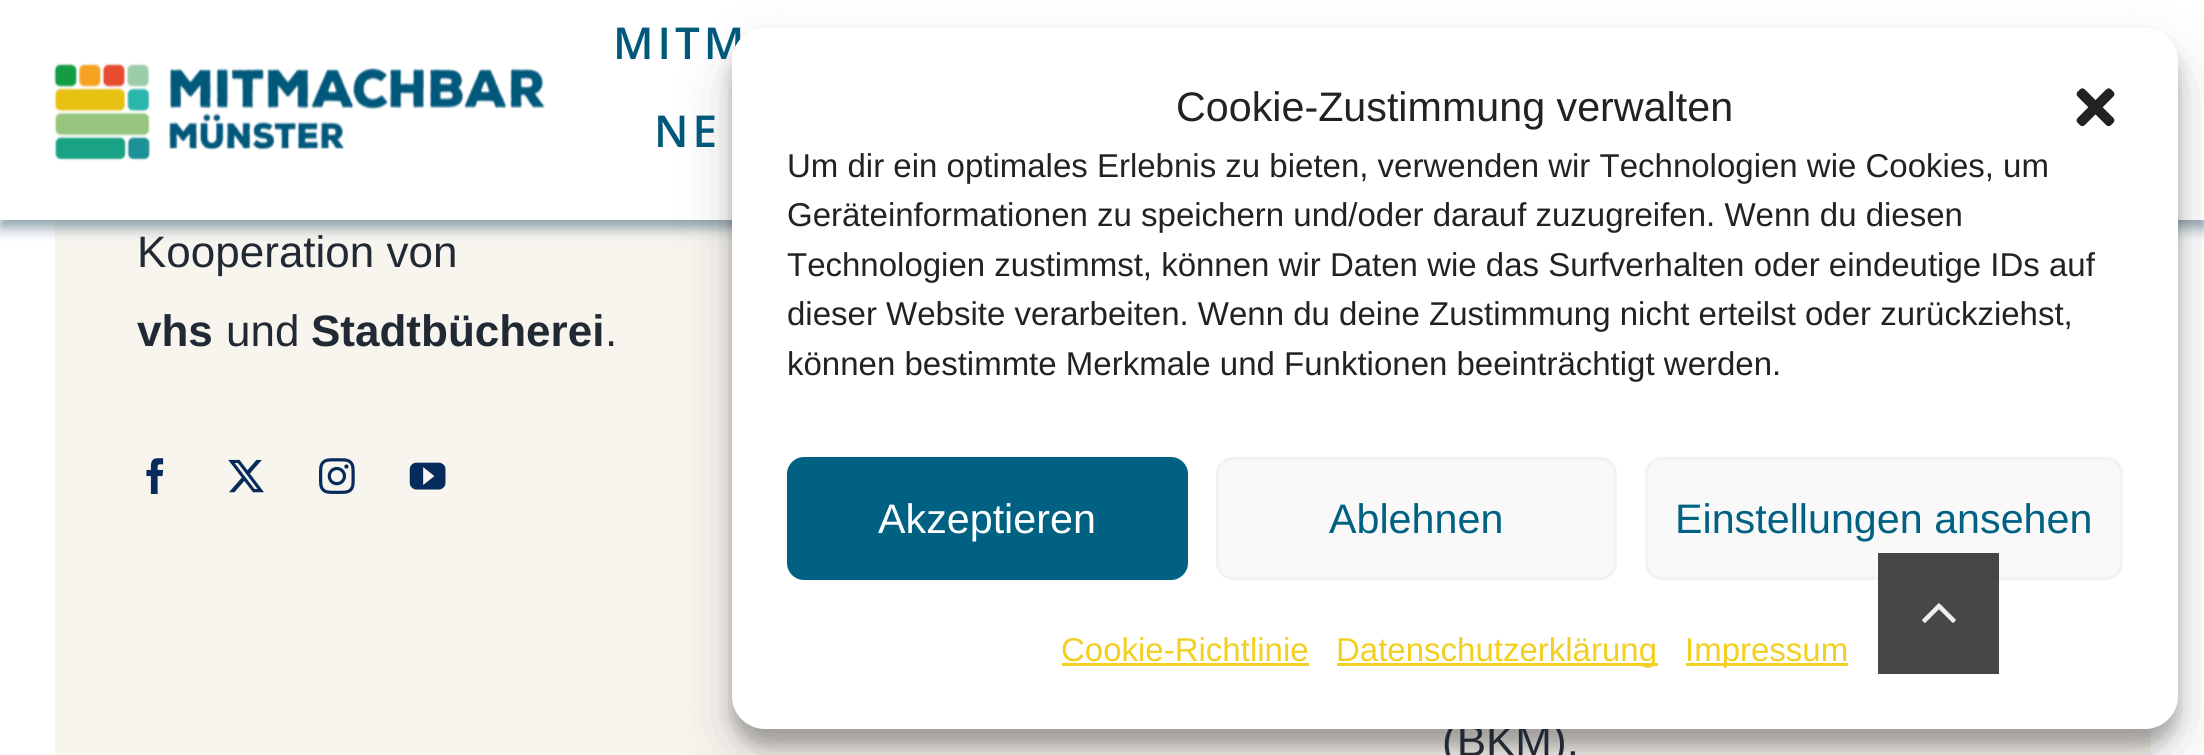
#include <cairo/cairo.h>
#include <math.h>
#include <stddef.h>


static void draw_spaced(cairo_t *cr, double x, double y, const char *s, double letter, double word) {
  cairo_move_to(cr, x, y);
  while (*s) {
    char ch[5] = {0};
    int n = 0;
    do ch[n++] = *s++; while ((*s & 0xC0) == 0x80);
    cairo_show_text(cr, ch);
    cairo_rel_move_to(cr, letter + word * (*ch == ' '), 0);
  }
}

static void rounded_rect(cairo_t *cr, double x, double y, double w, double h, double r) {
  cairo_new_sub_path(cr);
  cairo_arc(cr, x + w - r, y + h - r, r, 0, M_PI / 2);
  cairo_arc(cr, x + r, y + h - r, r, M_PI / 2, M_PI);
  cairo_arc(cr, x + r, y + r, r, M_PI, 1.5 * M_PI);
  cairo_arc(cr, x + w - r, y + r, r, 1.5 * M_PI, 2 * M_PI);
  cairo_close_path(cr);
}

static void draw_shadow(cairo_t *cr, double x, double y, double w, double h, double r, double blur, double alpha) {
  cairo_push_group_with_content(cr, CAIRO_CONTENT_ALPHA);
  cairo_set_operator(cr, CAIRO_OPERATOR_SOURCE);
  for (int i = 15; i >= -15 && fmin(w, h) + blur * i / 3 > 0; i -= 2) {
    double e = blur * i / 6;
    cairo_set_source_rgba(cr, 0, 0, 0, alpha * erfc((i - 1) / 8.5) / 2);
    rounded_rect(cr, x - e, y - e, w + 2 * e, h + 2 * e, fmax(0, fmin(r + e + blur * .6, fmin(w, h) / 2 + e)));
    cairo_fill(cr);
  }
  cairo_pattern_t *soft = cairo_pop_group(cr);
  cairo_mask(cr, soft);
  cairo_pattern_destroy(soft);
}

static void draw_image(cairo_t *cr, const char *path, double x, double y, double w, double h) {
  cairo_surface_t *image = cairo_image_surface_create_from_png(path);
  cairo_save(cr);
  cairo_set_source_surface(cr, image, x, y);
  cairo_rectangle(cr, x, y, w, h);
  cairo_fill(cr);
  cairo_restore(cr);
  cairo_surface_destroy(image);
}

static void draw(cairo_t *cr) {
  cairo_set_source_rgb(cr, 1, 1, 1);
  cairo_paint(cr);
  cairo_set_source_rgb(cr, 248 / 255.0, 245 / 255.0, 239 / 255.0);
  cairo_rectangle(cr, 55, 220, 2096, 535);
  cairo_fill(cr);
  cairo_set_source_rgb(cr, 25 / 255.0, 68 / 255.0, 91 / 255.0);
  draw_shadow(cr, 0, 8, 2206, 220, 0, 7, 0.5);
  cairo_set_source_rgb(cr, 1, 1, 1);
  cairo_rectangle(cr, 0, 0, 2204, 220);
  cairo_fill(cr);
  draw_image(cr, "images/1.png", 54, 63, 491, 98);
  draw_image(cr, "images/2.png", 146, 458, 18, 36);
  draw_image(cr, "images/3.png", 228, 459, 36, 34);
  draw_image(cr, "images/4.png", 319, 458, 36, 36);
  draw_image(cr, "images/5.png", 409, 462, 37, 28);
  cairo_set_source_rgb(cr, 0, 0, 0);
  draw_shadow(cr, 732, 44, 1446, 701, 33, 8, 0.23);
  draw_shadow(cr, 732, 55, 1446, 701, 33, 27.5, 0.19);
  cairo_select_font_face(cr, "Open Sans SemiBold", CAIRO_FONT_SLANT_NORMAL, CAIRO_FONT_WEIGHT_NORMAL);
  cairo_set_font_size(cr, 44);
  cairo_set_source_rgb(cr, 0, 88 / 255.0, 123 / 255.0);
  draw_spaced(cr, 613, 59, "MITM", 4, 0);
  draw_spaced(cr, 654, 147, "NE", 4, 0);
  cairo_select_font_face(cr, "Liberation Sans", CAIRO_FONT_SLANT_NORMAL, CAIRO_FONT_WEIGHT_NORMAL);
  cairo_set_source_rgb(cr, 33 / 255.0, 41 / 255.0, 52 / 255.0);
  cairo_move_to(cr, 137, 267);
  cairo_show_text(cr, "Kooperation von");
  cairo_select_font_face(cr, "Liberation Sans", CAIRO_FONT_SLANT_NORMAL, CAIRO_FONT_WEIGHT_BOLD);
  cairo_move_to(cr, 137, 346);
  cairo_show_text(cr, "vhs");
  cairo_select_font_face(cr, "Liberation Sans", CAIRO_FONT_SLANT_NORMAL, CAIRO_FONT_WEIGHT_NORMAL);
  cairo_move_to(cr, 226, 346);
  cairo_show_text(cr, "und");
  cairo_select_font_face(cr, "Liberation Sans", CAIRO_FONT_SLANT_NORMAL, CAIRO_FONT_WEIGHT_BOLD);
  cairo_move_to(cr, 311, 346);
  cairo_show_text(cr, "Stadtbücherei");
  cairo_select_font_face(cr, "Liberation Sans", CAIRO_FONT_SLANT_NORMAL, CAIRO_FONT_WEIGHT_NORMAL);
  cairo_move_to(cr, 605, 346);
  cairo_show_text(cr, ".");
  cairo_move_to(cr, 1442, 756);
  cairo_show_text(cr, "(BKM).");
  cairo_set_source_rgb(cr, 1, 1, 1);
  rounded_rect(cr, 732, 28, 1446, 701, 33);
  cairo_fill(cr);
  cairo_set_font_size(cr, 41.25);
  cairo_set_source_rgb(cr, 34 / 255.0, 34 / 255.0, 34 / 255.0);
  cairo_move_to(cr, 1176, 121);
  cairo_show_text(cr, "Cookie-Zustimmung verwalten");
  draw_image(cr, "images/6.png", 2076, 88, 39, 39);
  cairo_set_font_size(cr, 33);
  cairo_move_to(cr, 787, 177);
  cairo_show_text(cr, "Um dir ein optimales Erlebnis zu bieten, verwenden wir Technologien wie Cookies, um");
  cairo_move_to(cr, 787, 226);
  cairo_show_text(cr, "Geräteinformationen zu speichern und/oder darauf zuzugreifen. Wenn du diesen");
  cairo_move_to(cr, 787, 276);
  cairo_show_text(cr, "Technologien zustimmst, können wir Daten wie das Surfverhalten oder eindeutige IDs auf");
  cairo_move_to(cr, 787, 325);
  cairo_show_text(cr, "dieser Website verarbeiten. Wenn du deine Zustimmung nicht erteilst oder zurückziehst,");
  cairo_move_to(cr, 787, 375);
  cairo_show_text(cr, "können bestimmte Merkmale und Funktionen beeinträchtigt werden.");
  cairo_set_source_rgb(cr, 0, 97 / 255.0, 130 / 255.0);
  rounded_rect(cr, 788.5, 458.5, 398, 120, 15.5);
  cairo_fill_preserve(cr);
  cairo_set_line_width(cr, 3);
  cairo_stroke(cr);
  cairo_set_font_size(cr, 41.25);
  cairo_set_source_rgb(cr, 1, 1, 1);
  cairo_move_to(cr, 878, 533);
  cairo_show_text(cr, "Akzeptieren");
  cairo_set_source_rgb(cr, 249 / 255.0, 249 / 255.0, 249 / 255.0);
  rounded_rect(cr, 1217.5, 458.5, 398, 120, 15.5);
  cairo_fill_preserve(cr);
  cairo_set_source_rgb(cr, 242 / 255.0, 242 / 255.0, 242 / 255.0);
  cairo_stroke(cr);
  cairo_set_source_rgb(cr, 0, 97 / 255.0, 130 / 255.0);
  cairo_move_to(cr, 1329, 533);
  cairo_show_text(cr, "Ablehnen");
  cairo_set_source_rgb(cr, 249 / 255.0, 249 / 255.0, 249 / 255.0);
  rounded_rect(cr, 1646.5, 458.5, 475, 120, 15.5);
  cairo_fill_preserve(cr);
  cairo_set_source_rgb(cr, 242 / 255.0, 242 / 255.0, 242 / 255.0);
  cairo_stroke(cr);
  cairo_set_source_rgb(cr, 0, 97 / 255.0, 130 / 255.0);
  cairo_move_to(cr, 1675, 533);
  cairo_show_text(cr, "Einstellungen ansehen");
  cairo_set_font_size(cr, 33);
  cairo_set_source_rgb(cr, 242 / 255.0, 207 / 255.0, 33 / 255.0);
  cairo_move_to(cr, 1061, 661);
  cairo_show_text(cr, "Cookie-Richtlinie");
  cairo_rectangle(cr, 1062, 663, 247, 3);
  cairo_fill(cr);
  cairo_rectangle(cr, 1337, 663, 321, 3);
  cairo_fill(cr);
  cairo_move_to(cr, 1336, 661);
  cairo_show_text(cr, "Datenschutzerklärung");
  cairo_rectangle(cr, 1686, 663, 162, 3);
  cairo_fill(cr);
  cairo_move_to(cr, 1685, 661);
  cairo_show_text(cr, "Impressum");
  cairo_set_source_rgba(cr, 51 / 255.0, 51 / 255.0, 51 / 255.0, 0.9);
  cairo_rectangle(cr, 1878, 553, 121, 121);
  cairo_fill(cr);
  draw_image(cr, "images/7.png", 1922, 603, 34, 20);
}

int main(void) {
  cairo_surface_t *surface = cairo_image_surface_create(CAIRO_FORMAT_RGB24, 2204, 755);
  cairo_t *cr = cairo_create(surface);
  cairo_font_options_t *options = cairo_font_options_create();
  cairo_font_options_set_hint_metrics(options, CAIRO_HINT_METRICS_OFF);
  cairo_font_options_set_hint_style(options, CAIRO_HINT_STYLE_NONE);
  cairo_set_font_options(cr, options);
  cairo_set_miter_limit(cr, 4);
  draw(cr);
  cairo_surface_write_to_png(surface, "out.png");
  cairo_font_options_destroy(options);
  cairo_destroy(cr);
  cairo_surface_destroy(surface);
  return 0;
}
